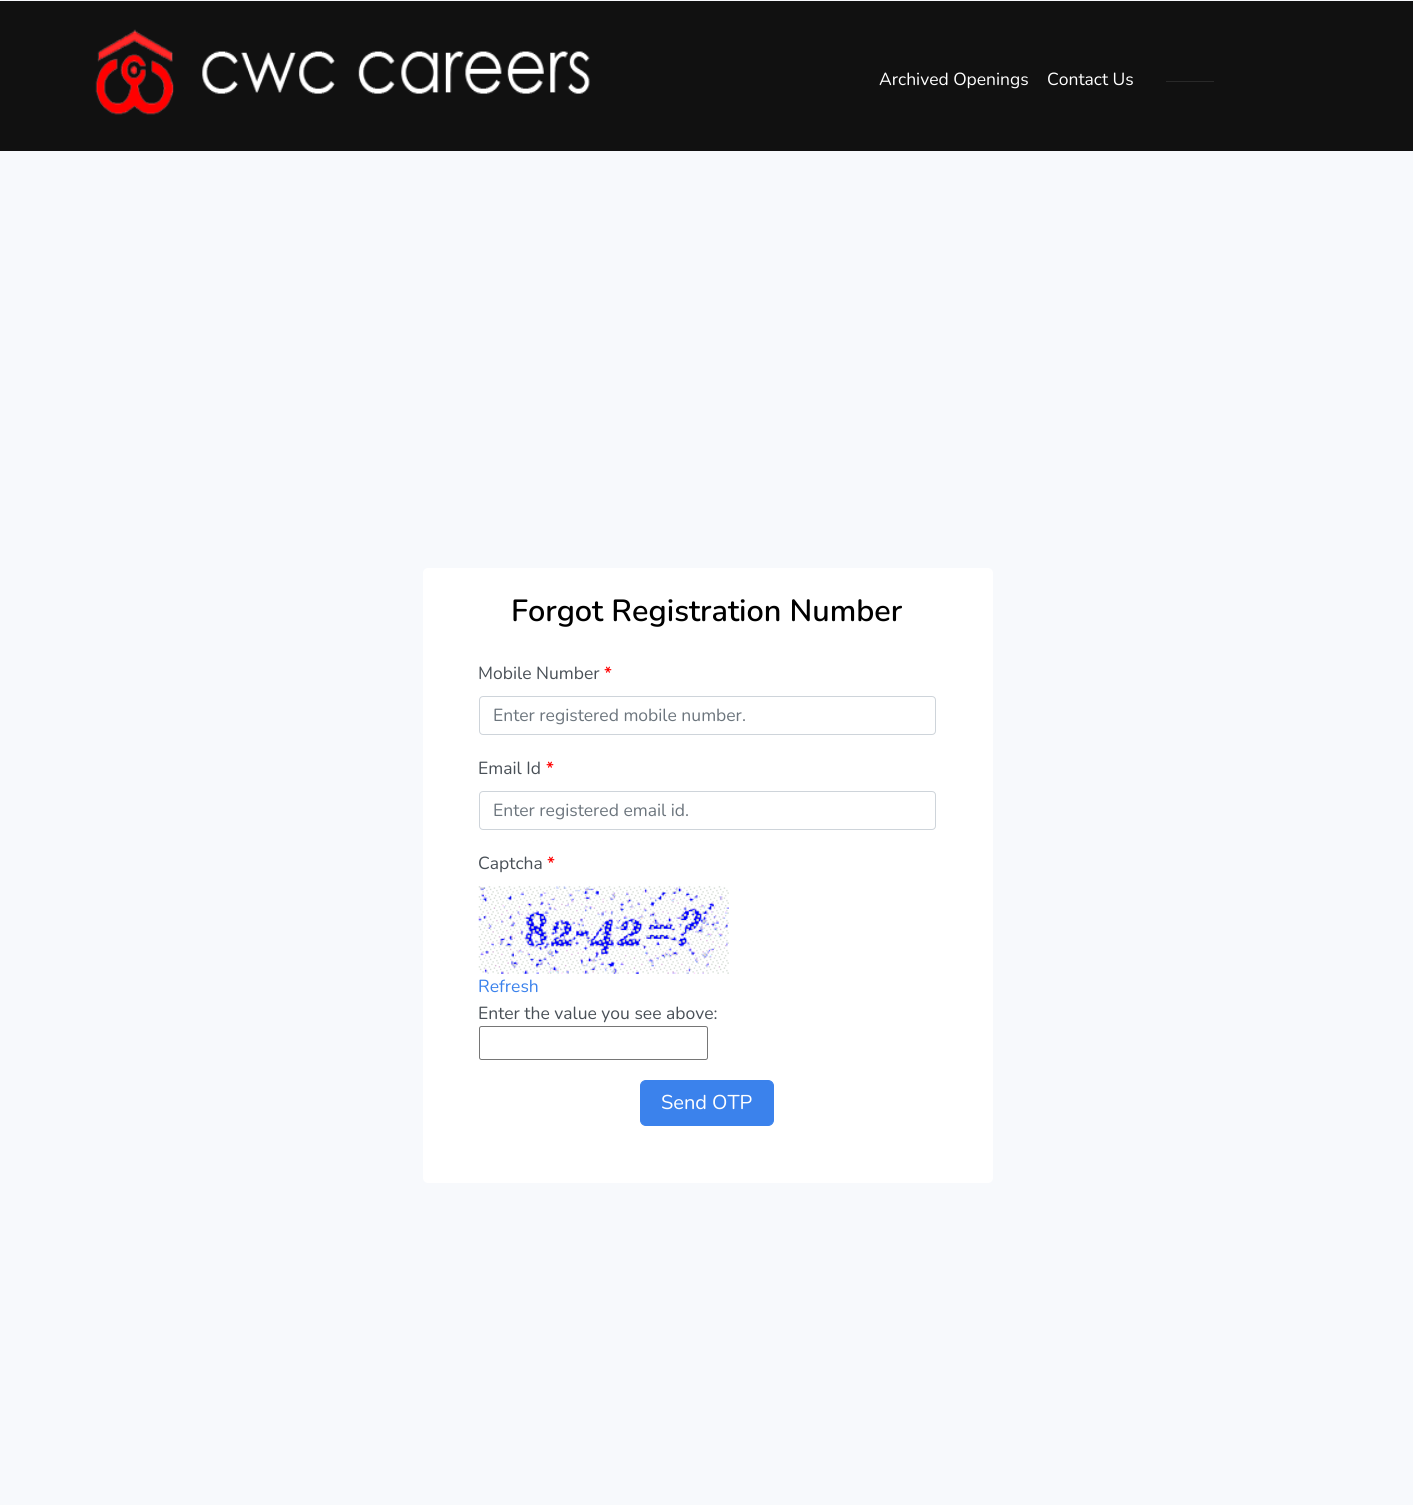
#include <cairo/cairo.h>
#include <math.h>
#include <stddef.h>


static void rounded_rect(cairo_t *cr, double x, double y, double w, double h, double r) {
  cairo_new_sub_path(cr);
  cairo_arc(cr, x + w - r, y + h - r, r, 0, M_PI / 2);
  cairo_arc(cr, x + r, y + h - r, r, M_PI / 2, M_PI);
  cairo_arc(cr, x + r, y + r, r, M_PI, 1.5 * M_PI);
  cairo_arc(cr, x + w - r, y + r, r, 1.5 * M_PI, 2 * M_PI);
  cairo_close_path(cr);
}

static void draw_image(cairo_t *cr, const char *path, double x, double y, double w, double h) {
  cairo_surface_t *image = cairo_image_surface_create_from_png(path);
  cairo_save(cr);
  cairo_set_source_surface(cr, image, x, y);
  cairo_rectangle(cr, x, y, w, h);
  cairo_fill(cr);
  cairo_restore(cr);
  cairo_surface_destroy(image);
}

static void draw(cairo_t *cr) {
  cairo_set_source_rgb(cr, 247 / 255.0, 249 / 255.0, 252 / 255.0);
  cairo_paint(cr);
  cairo_set_source_rgb(cr, 17 / 255.0, 17 / 255.0, 17 / 255.0);
  cairo_rectangle(cr, 0, 1, 1413, 150);
  cairo_fill(cr);
  draw_image(cr, "images/1.png", 95, 29, 495, 86);
  cairo_set_source_rgb(cr, 41 / 255.0, 41 / 255.0, 41 / 255.0);
  cairo_rectangle(cr, 1166, 81, 48, 1);
  cairo_fill(cr);
  cairo_set_source_rgb(cr, 1, 1, 1);
  rounded_rect(cr, 423, 568, 570, 615, 5);
  cairo_fill(cr);
  rounded_rect(cr, 479.5, 696.5, 456, 38, 3.5);
  cairo_set_source_rgb(cr, 206 / 255.0, 212 / 255.0, 218 / 255.0);
  cairo_set_line_width(cr, 1);
  cairo_stroke(cr);
  rounded_rect(cr, 479.5, 791.5, 456, 38, 3.5);
  cairo_stroke(cr);
  draw_image(cr, "images/2.png", 478, 886, 251, 88);
  rounded_rect(cr, 479.5, 1026.5, 228, 33, 2);
  cairo_set_source_rgb(cr, 118 / 255.0, 118 / 255.0, 118 / 255.0);
  cairo_stroke(cr);
  cairo_set_source_rgb(cr, 59 / 255.0, 130 / 255.0, 236 / 255.0);
  rounded_rect(cr, 640.5, 1080.5, 133, 45, 5.5);
  cairo_fill_preserve(cr);
  cairo_stroke(cr);
  cairo_select_font_face(cr, "Nunito", CAIRO_FONT_SLANT_NORMAL, CAIRO_FONT_WEIGHT_NORMAL);
  cairo_set_font_size(cr, 17.5);
  cairo_set_source_rgb(cr, 1, 1, 1);
  cairo_move_to(cr, 879, 85);
  cairo_show_text(cr, "Archived Openings");
  cairo_move_to(cr, 1047, 85);
  cairo_show_text(cr, "Contact Us");
  cairo_select_font_face(cr, "Nunito SemiBold", CAIRO_FONT_SLANT_NORMAL, CAIRO_FONT_WEIGHT_NORMAL);
  cairo_set_font_size(cr, 30.6);
  cairo_set_source_rgb(cr, 0, 0, 0);
  cairo_move_to(cr, 511, 621);
  cairo_show_text(cr, "Forgot Registration Number");
  cairo_select_font_face(cr, "Nunito", CAIRO_FONT_SLANT_NORMAL, CAIRO_FONT_WEIGHT_NORMAL);
  cairo_set_font_size(cr, 17.5);
  cairo_set_source_rgb(cr, 73 / 255.0, 80 / 255.0, 87 / 255.0);
  cairo_move_to(cr, 478, 679);
  cairo_show_text(cr, "Mobile Number");
  cairo_select_font_face(cr, "Nunito SemiBold", CAIRO_FONT_SLANT_NORMAL, CAIRO_FONT_WEIGHT_NORMAL);
  cairo_set_source_rgb(cr, 1, 0, 0);
  cairo_move_to(cr, 604, 679);
  cairo_show_text(cr, "*");
  cairo_select_font_face(cr, "Nunito", CAIRO_FONT_SLANT_NORMAL, CAIRO_FONT_WEIGHT_NORMAL);
  cairo_set_source_rgb(cr, 108 / 255.0, 117 / 255.0, 125 / 255.0);
  cairo_move_to(cr, 493, 721);
  cairo_show_text(cr, "Enter registered mobile number.");
  cairo_set_source_rgb(cr, 73 / 255.0, 80 / 255.0, 87 / 255.0);
  cairo_move_to(cr, 478, 774);
  cairo_show_text(cr, "Email Id");
  cairo_select_font_face(cr, "Nunito SemiBold", CAIRO_FONT_SLANT_NORMAL, CAIRO_FONT_WEIGHT_NORMAL);
  cairo_set_source_rgb(cr, 1, 0, 0);
  cairo_move_to(cr, 546, 774);
  cairo_show_text(cr, "*");
  cairo_select_font_face(cr, "Nunito", CAIRO_FONT_SLANT_NORMAL, CAIRO_FONT_WEIGHT_NORMAL);
  cairo_set_source_rgb(cr, 108 / 255.0, 117 / 255.0, 125 / 255.0);
  cairo_move_to(cr, 493, 816);
  cairo_show_text(cr, "Enter registered email id.");
  cairo_set_source_rgb(cr, 73 / 255.0, 80 / 255.0, 87 / 255.0);
  cairo_move_to(cr, 478, 869);
  cairo_show_text(cr, "Captcha");
  cairo_select_font_face(cr, "Nunito SemiBold", CAIRO_FONT_SLANT_NORMAL, CAIRO_FONT_WEIGHT_NORMAL);
  cairo_set_source_rgb(cr, 1, 0, 0);
  cairo_move_to(cr, 547, 869);
  cairo_show_text(cr, "*");
  cairo_select_font_face(cr, "Nunito", CAIRO_FONT_SLANT_NORMAL, CAIRO_FONT_WEIGHT_NORMAL);
  cairo_set_source_rgb(cr, 59 / 255.0, 130 / 255.0, 236 / 255.0);
  cairo_move_to(cr, 478, 992);
  cairo_show_text(cr, "Refresh");
  cairo_set_source_rgb(cr, 73 / 255.0, 80 / 255.0, 87 / 255.0);
  cairo_move_to(cr, 478, 1019);
  cairo_show_text(cr, "Enter the value you see above:");
  cairo_set_font_size(cr, 20);
  cairo_set_source_rgb(cr, 1, 1, 1);
  cairo_move_to(cr, 661, 1109);
  cairo_show_text(cr, "Send OTP");
}

int main(void) {
  cairo_surface_t *surface = cairo_image_surface_create(CAIRO_FORMAT_RGB24, 1413, 1505);
  cairo_t *cr = cairo_create(surface);
  cairo_font_options_t *options = cairo_font_options_create();
  cairo_font_options_set_hint_metrics(options, CAIRO_HINT_METRICS_OFF);
  cairo_font_options_set_hint_style(options, CAIRO_HINT_STYLE_NONE);
  cairo_set_font_options(cr, options);
  cairo_set_miter_limit(cr, 4);
  draw(cr);
  cairo_surface_write_to_png(surface, "out.png");
  cairo_font_options_destroy(options);
  cairo_destroy(cr);
  cairo_surface_destroy(surface);
  return 0;
}
